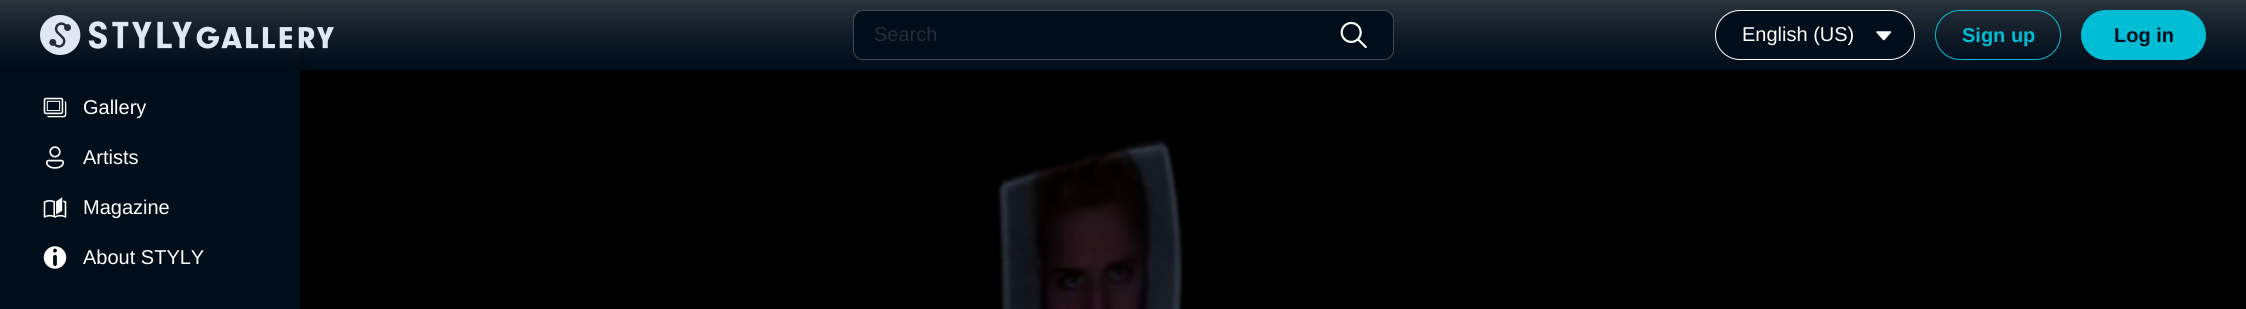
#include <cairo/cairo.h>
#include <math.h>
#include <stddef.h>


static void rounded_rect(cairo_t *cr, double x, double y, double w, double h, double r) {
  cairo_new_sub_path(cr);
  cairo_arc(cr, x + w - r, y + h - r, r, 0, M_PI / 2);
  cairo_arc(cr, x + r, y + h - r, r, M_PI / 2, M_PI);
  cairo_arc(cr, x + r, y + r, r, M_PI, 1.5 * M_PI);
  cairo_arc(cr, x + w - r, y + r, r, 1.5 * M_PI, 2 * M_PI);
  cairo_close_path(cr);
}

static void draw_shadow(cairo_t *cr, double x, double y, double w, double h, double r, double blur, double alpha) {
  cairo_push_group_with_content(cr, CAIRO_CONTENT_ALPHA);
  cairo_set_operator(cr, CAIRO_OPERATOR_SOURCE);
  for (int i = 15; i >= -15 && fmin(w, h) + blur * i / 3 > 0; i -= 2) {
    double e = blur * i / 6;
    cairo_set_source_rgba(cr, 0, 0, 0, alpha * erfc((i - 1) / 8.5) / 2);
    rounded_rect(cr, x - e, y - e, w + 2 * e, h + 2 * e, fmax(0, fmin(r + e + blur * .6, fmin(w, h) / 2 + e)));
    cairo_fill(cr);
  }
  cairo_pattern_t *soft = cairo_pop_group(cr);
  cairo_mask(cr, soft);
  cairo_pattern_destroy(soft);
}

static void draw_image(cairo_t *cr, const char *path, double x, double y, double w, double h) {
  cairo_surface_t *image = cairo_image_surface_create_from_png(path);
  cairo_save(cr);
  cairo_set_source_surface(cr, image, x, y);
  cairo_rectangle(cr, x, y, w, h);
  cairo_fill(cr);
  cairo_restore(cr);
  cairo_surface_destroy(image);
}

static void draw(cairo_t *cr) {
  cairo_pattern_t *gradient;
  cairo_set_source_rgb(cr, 0, 13 / 255.0, 26 / 255.0);
  cairo_paint(cr);
  draw_image(cr, "images/8.png", 300, 70, 1946, 239);
  cairo_save(cr);
  cairo_rectangle(cr, 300, 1, 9, 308);
  cairo_clip(cr);
  cairo_set_source_rgb(cr, 0, 0, 0);
  draw_shadow(cr, 3, 0, 300, 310, 0, 3, 1);
  cairo_restore(cr);
  gradient = cairo_pattern_create_linear(1123, 0, 1123, 70);
  cairo_pattern_add_color_stop_rgba(gradient, 0, 43 / 255.0, 52 / 255.0, 61 / 255.0, 1);
  cairo_pattern_add_color_stop_rgba(gradient, 1, 0, 13 / 255.0, 26 / 255.0, 0.5);
  cairo_set_source(cr, gradient);
  cairo_pattern_destroy(gradient);
  cairo_rectangle(cr, 0, 0, 2246, 70);
  cairo_fill(cr);
  draw_image(cr, "images/1.png", 40, 15, 294, 40);
  rounded_rect(cr, 853.5, 10.5, 540, 49, 9.5);
  cairo_set_source_rgb(cr, 61 / 255.0, 73 / 255.0, 85 / 255.0);
  cairo_set_line_width(cr, 1);
  cairo_stroke(cr);
  cairo_save(cr);
  rounded_rect(cr, 854, 11, 539, 48, 9);
  cairo_clip(cr);
  cairo_set_source_rgb(cr, 0, 13 / 255.0, 26 / 255.0);
  cairo_new_path(cr);
  cairo_move_to(cr, 864, 11);
  cairo_line_to(cr, 1315, 11);
  cairo_line_to(cr, 1315, 59);
  cairo_line_to(cr, 864, 59);
  cairo_curve_to(cr, 858.5, 59, 854, 54.5, 854, 49);
  cairo_line_to(cr, 854, 21);
  cairo_curve_to(cr, 854, 15.5, 858.5, 11, 864, 11);
  cairo_close_path(cr);
  cairo_fill(cr);
  cairo_new_path(cr);
  cairo_move_to(cr, 1315, 11);
  cairo_line_to(cr, 1383, 11);
  cairo_curve_to(cr, 1388.5, 11, 1393, 15.5, 1393, 21);
  cairo_line_to(cr, 1393, 49);
  cairo_curve_to(cr, 1393, 54.5, 1388.5, 59, 1383, 59);
  cairo_line_to(cr, 1315, 59);
  cairo_close_path(cr);
  cairo_fill(cr);
  cairo_restore(cr);
  draw_image(cr, "images/2.png", 1340, 21, 27, 28);
  cairo_set_source_rgb(cr, 0, 13 / 255.0, 26 / 255.0);
  rounded_rect(cr, 1715.5, 10.5, 199, 49, 24.5);
  cairo_fill_preserve(cr);
  cairo_set_source_rgb(cr, 252 / 255.0, 254 / 255.0, 1);
  cairo_stroke(cr);
  draw_image(cr, "images/3.png", 1876, 31, 16, 10);
  rounded_rect(cr, 1935.5, 10.5, 125, 49, 24.5);
  cairo_set_source_rgb(cr, 0, 188 / 255.0, 212 / 255.0);
  cairo_stroke(cr);
  rounded_rect(cr, 2081, 10, 125, 50, 25);
  cairo_fill(cr);
  draw_image(cr, "images/4.png", 43, 97, 24, 21);
  draw_image(cr, "images/5.png", 46, 146, 18, 23);
  draw_image(cr, "images/6.png", 43, 197, 24, 21);
  draw_image(cr, "images/7.png", 43, 246, 24, 23);
  cairo_select_font_face(cr, "Liberation Sans", CAIRO_FONT_SLANT_NORMAL, CAIRO_FONT_WEIGHT_NORMAL);
  cairo_set_font_size(cr, 20);
  cairo_set_source_rgb(cr, 33 / 255.0, 45 / 255.0, 58 / 255.0);
  cairo_move_to(cr, 874, 41);
  cairo_show_text(cr, "Search");
  cairo_set_source_rgb(cr, 1, 1, 1);
  cairo_move_to(cr, 1742, 41);
  cairo_show_text(cr, "English (US)");
  cairo_select_font_face(cr, "Liberation Sans", CAIRO_FONT_SLANT_NORMAL, CAIRO_FONT_WEIGHT_BOLD);
  cairo_set_source_rgb(cr, 0, 188 / 255.0, 212 / 255.0);
  cairo_move_to(cr, 1962, 42);
  cairo_show_text(cr, "Sign up");
  cairo_set_source_rgb(cr, 0, 13 / 255.0, 26 / 255.0);
  cairo_move_to(cr, 2114, 42);
  cairo_show_text(cr, "Log in");
  cairo_select_font_face(cr, "Liberation Sans", CAIRO_FONT_SLANT_NORMAL, CAIRO_FONT_WEIGHT_NORMAL);
  cairo_set_source_rgb(cr, 1, 1, 1);
  cairo_move_to(cr, 83, 114);
  cairo_show_text(cr, "Gallery");
  cairo_move_to(cr, 83, 164);
  cairo_show_text(cr, "Artists");
  cairo_move_to(cr, 83, 214);
  cairo_show_text(cr, "Magazine");
  cairo_move_to(cr, 83, 264);
  cairo_show_text(cr, "About STYLY");
}

int main(void) {
  cairo_surface_t *surface = cairo_image_surface_create(CAIRO_FORMAT_RGB24, 2246, 309);
  cairo_t *cr = cairo_create(surface);
  cairo_font_options_t *options = cairo_font_options_create();
  cairo_font_options_set_hint_metrics(options, CAIRO_HINT_METRICS_OFF);
  cairo_font_options_set_hint_style(options, CAIRO_HINT_STYLE_NONE);
  cairo_set_font_options(cr, options);
  cairo_set_miter_limit(cr, 4);
  draw(cr);
  cairo_surface_write_to_png(surface, "out.png");
  cairo_font_options_destroy(options);
  cairo_destroy(cr);
  cairo_surface_destroy(surface);
  return 0;
}
